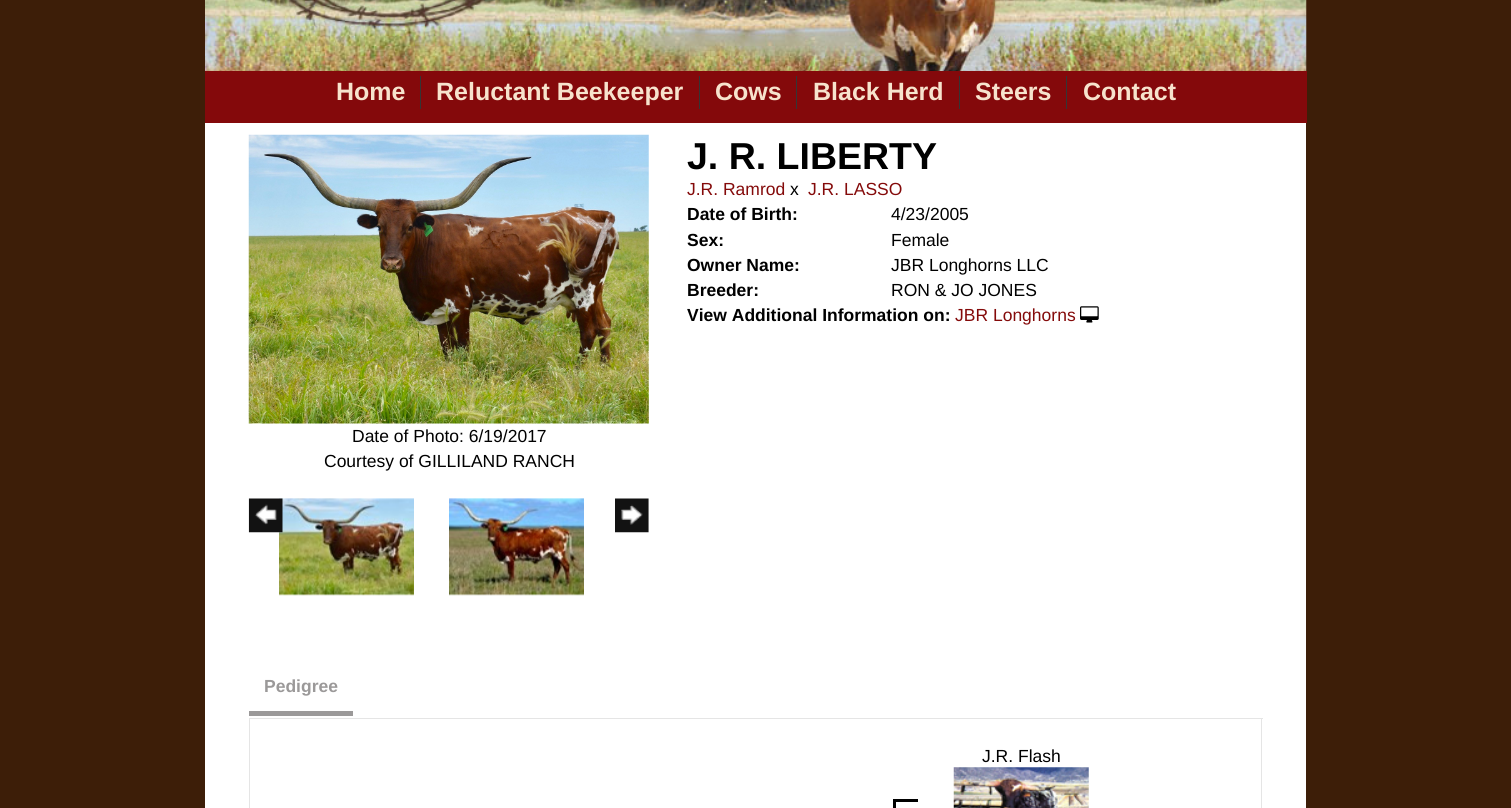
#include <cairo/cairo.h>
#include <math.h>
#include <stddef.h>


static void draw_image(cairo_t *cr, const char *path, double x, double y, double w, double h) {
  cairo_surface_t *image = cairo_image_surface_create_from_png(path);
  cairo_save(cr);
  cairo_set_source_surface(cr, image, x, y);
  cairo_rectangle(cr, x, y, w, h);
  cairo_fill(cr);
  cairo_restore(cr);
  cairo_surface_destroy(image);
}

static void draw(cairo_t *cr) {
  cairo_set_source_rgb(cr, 61 / 255.0, 30 / 255.0, 8 / 255.0);
  cairo_paint(cr);
  draw_image(cr, "images/1.png", 205, 0, 1102, 71);
  cairo_set_source_rgb(cr, 132 / 255.0, 9 / 255.0, 11 / 255.0);
  cairo_rectangle(cr, 205, 71, 1102, 52);
  cairo_fill(cr);
  cairo_set_source_rgb(cr, 53 / 255.0, 53 / 255.0, 53 / 255.0);
  cairo_rectangle(cr, 420, 76, 1, 33);
  cairo_fill(cr);
  cairo_rectangle(cr, 699, 76, 1, 33);
  cairo_fill(cr);
  cairo_rectangle(cr, 796, 76, 1, 33);
  cairo_fill(cr);
  cairo_rectangle(cr, 959, 76, 1, 33);
  cairo_fill(cr);
  cairo_rectangle(cr, 1066, 76, 1, 33);
  cairo_fill(cr);
  cairo_set_source_rgb(cr, 1, 1, 1);
  cairo_rectangle(cr, 205, 123, 1101, 685);
  cairo_fill(cr);
  draw_image(cr, "images/2.png", 1080, 306, 19, 17);
  draw_image(cr, "images/3.png", 248, 134, 401, 290);
  draw_image(cr, "images/5.png", 279, 498, 135, 98);
  draw_image(cr, "images/4.png", 248, 498, 35, 35);
  draw_image(cr, "images/6.png", 449, 498, 135, 98);
  draw_image(cr, "images/7.png", 615, 498, 34, 35);
  cairo_set_source_rgb(cr, 229 / 255.0, 229 / 255.0, 229 / 255.0);
  cairo_rectangle(cr, 249, 718, 1014, 1);
  cairo_fill(cr);
  cairo_set_source_rgb(cr, 155 / 255.0, 153 / 255.0, 153 / 255.0);
  cairo_rectangle(cr, 249, 711, 104, 5);
  cairo_fill(cr);
  cairo_set_source_rgb(cr, 229 / 255.0, 229 / 255.0, 229 / 255.0);
  cairo_set_fill_rule(cr, CAIRO_FILL_RULE_EVEN_ODD);
  cairo_new_path(cr);
  cairo_move_to(cr, 249, 719);
  cairo_line_to(cr, 1262, 719);
  cairo_line_to(cr, 1262, 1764);
  cairo_curve_to(cr, 1262, 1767, 1260, 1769, 1258, 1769);
  cairo_line_to(cr, 254, 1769);
  cairo_curve_to(cr, 251, 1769, 249, 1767, 249, 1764);
  cairo_close_path(cr);
  cairo_move_to(cr, 250, 719);
  cairo_line_to(cr, 1261, 719);
  cairo_line_to(cr, 1261, 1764);
  cairo_curve_to(cr, 1261, 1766, 1260, 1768, 1258, 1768);
  cairo_line_to(cr, 254, 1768);
  cairo_curve_to(cr, 252, 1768, 250, 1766, 250, 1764);
  cairo_close_path(cr);
  cairo_fill(cr);
  draw_image(cr, "images/8.png", 953, 767, 136, 41);
  cairo_set_source_rgb(cr, 0, 0, 0);
  cairo_rectangle(cr, 893, 799, 25, 3);
  cairo_fill(cr);
  cairo_rectangle(cr, 893, 799, 3, 9);
  cairo_fill(cr);
  cairo_select_font_face(cr, "Liberation Sans", CAIRO_FONT_SLANT_NORMAL, CAIRO_FONT_WEIGHT_BOLD);
  cairo_set_font_size(cr, 25);
  cairo_set_source_rgb(cr, 247 / 255.0, 227 / 255.0, 205 / 255.0);
  cairo_move_to(cr, 336, 100);
  cairo_show_text(cr, "Home");
  cairo_move_to(cr, 436, 100);
  cairo_show_text(cr, "Reluctant Beekeeper");
  cairo_move_to(cr, 715, 100);
  cairo_show_text(cr, "Cows");
  cairo_move_to(cr, 813, 100);
  cairo_show_text(cr, "Black Herd");
  cairo_move_to(cr, 975, 100);
  cairo_show_text(cr, "Steers");
  cairo_move_to(cr, 1083, 100);
  cairo_show_text(cr, "Contact");
  cairo_set_font_size(cr, 37.5);
  cairo_set_source_rgb(cr, 0, 0, 0);
  cairo_move_to(cr, 687, 169);
  cairo_show_text(cr, "J. R. LIBERTY");
  cairo_select_font_face(cr, "Liberation Sans", CAIRO_FONT_SLANT_NORMAL, CAIRO_FONT_WEIGHT_NORMAL);
  cairo_set_font_size(cr, 17.5);
  cairo_set_source_rgb(cr, 132 / 255.0, 10 / 255.0, 10 / 255.0);
  cairo_move_to(cr, 687, 195);
  cairo_show_text(cr, "J.R. Ramrod");
  cairo_set_source_rgb(cr, 0, 0, 0);
  cairo_move_to(cr, 790, 195);
  cairo_show_text(cr, "x");
  cairo_set_source_rgb(cr, 132 / 255.0, 10 / 255.0, 10 / 255.0);
  cairo_move_to(cr, 808, 195);
  cairo_show_text(cr, "J.R. LASSO");
  cairo_select_font_face(cr, "Liberation Sans", CAIRO_FONT_SLANT_NORMAL, CAIRO_FONT_WEIGHT_BOLD);
  cairo_set_source_rgb(cr, 0, 0, 0);
  cairo_move_to(cr, 687, 220);
  cairo_show_text(cr, "Date of Birth:");
  cairo_select_font_face(cr, "Liberation Sans", CAIRO_FONT_SLANT_NORMAL, CAIRO_FONT_WEIGHT_NORMAL);
  cairo_move_to(cr, 891, 220);
  cairo_show_text(cr, "4/23/2005");
  cairo_select_font_face(cr, "Liberation Sans", CAIRO_FONT_SLANT_NORMAL, CAIRO_FONT_WEIGHT_BOLD);
  cairo_move_to(cr, 687, 246);
  cairo_show_text(cr, "Sex:");
  cairo_select_font_face(cr, "Liberation Sans", CAIRO_FONT_SLANT_NORMAL, CAIRO_FONT_WEIGHT_NORMAL);
  cairo_move_to(cr, 891, 246);
  cairo_show_text(cr, "Female");
  cairo_select_font_face(cr, "Liberation Sans", CAIRO_FONT_SLANT_NORMAL, CAIRO_FONT_WEIGHT_BOLD);
  cairo_move_to(cr, 687, 271);
  cairo_show_text(cr, "Owner Name:");
  cairo_select_font_face(cr, "Liberation Sans", CAIRO_FONT_SLANT_NORMAL, CAIRO_FONT_WEIGHT_NORMAL);
  cairo_move_to(cr, 891, 271);
  cairo_show_text(cr, "JBR Longhorns LLC");
  cairo_select_font_face(cr, "Liberation Sans", CAIRO_FONT_SLANT_NORMAL, CAIRO_FONT_WEIGHT_BOLD);
  cairo_move_to(cr, 687, 296);
  cairo_show_text(cr, "Breeder:");
  cairo_select_font_face(cr, "Liberation Sans", CAIRO_FONT_SLANT_NORMAL, CAIRO_FONT_WEIGHT_NORMAL);
  cairo_move_to(cr, 891, 296);
  cairo_show_text(cr, "RON & JO JONES");
  cairo_select_font_face(cr, "Liberation Sans", CAIRO_FONT_SLANT_NORMAL, CAIRO_FONT_WEIGHT_BOLD);
  cairo_move_to(cr, 687, 321);
  cairo_show_text(cr, "View Additional Information on:");
  cairo_select_font_face(cr, "Liberation Sans", CAIRO_FONT_SLANT_NORMAL, CAIRO_FONT_WEIGHT_NORMAL);
  cairo_set_source_rgb(cr, 132 / 255.0, 10 / 255.0, 10 / 255.0);
  cairo_move_to(cr, 955, 321);
  cairo_show_text(cr, "JBR Longhorns");
  cairo_set_source_rgb(cr, 0, 0, 0);
  cairo_move_to(cr, 352, 442);
  cairo_show_text(cr, "Date of Photo: 6/19/2017");
  cairo_move_to(cr, 324, 467);
  cairo_show_text(cr, "Courtesy of GILLILAND RANCH");
  cairo_select_font_face(cr, "Liberation Sans", CAIRO_FONT_SLANT_NORMAL, CAIRO_FONT_WEIGHT_BOLD);
  cairo_set_source_rgb(cr, 155 / 255.0, 153 / 255.0, 153 / 255.0);
  cairo_move_to(cr, 264, 692);
  cairo_show_text(cr, "Pedigree");
  cairo_select_font_face(cr, "Liberation Sans", CAIRO_FONT_SLANT_NORMAL, CAIRO_FONT_WEIGHT_NORMAL);
  cairo_set_source_rgb(cr, 0, 0, 0);
  cairo_move_to(cr, 982, 762);
  cairo_show_text(cr, "J.R. Flash");
}

int main(void) {
  cairo_surface_t *surface = cairo_image_surface_create(CAIRO_FORMAT_RGB24, 1511, 808);
  cairo_t *cr = cairo_create(surface);
  cairo_font_options_t *options = cairo_font_options_create();
  cairo_font_options_set_hint_metrics(options, CAIRO_HINT_METRICS_OFF);
  cairo_font_options_set_hint_style(options, CAIRO_HINT_STYLE_NONE);
  cairo_set_font_options(cr, options);
  cairo_set_miter_limit(cr, 4);
  draw(cr);
  cairo_surface_write_to_png(surface, "out.png");
  cairo_font_options_destroy(options);
  cairo_destroy(cr);
  cairo_surface_destroy(surface);
  return 0;
}
